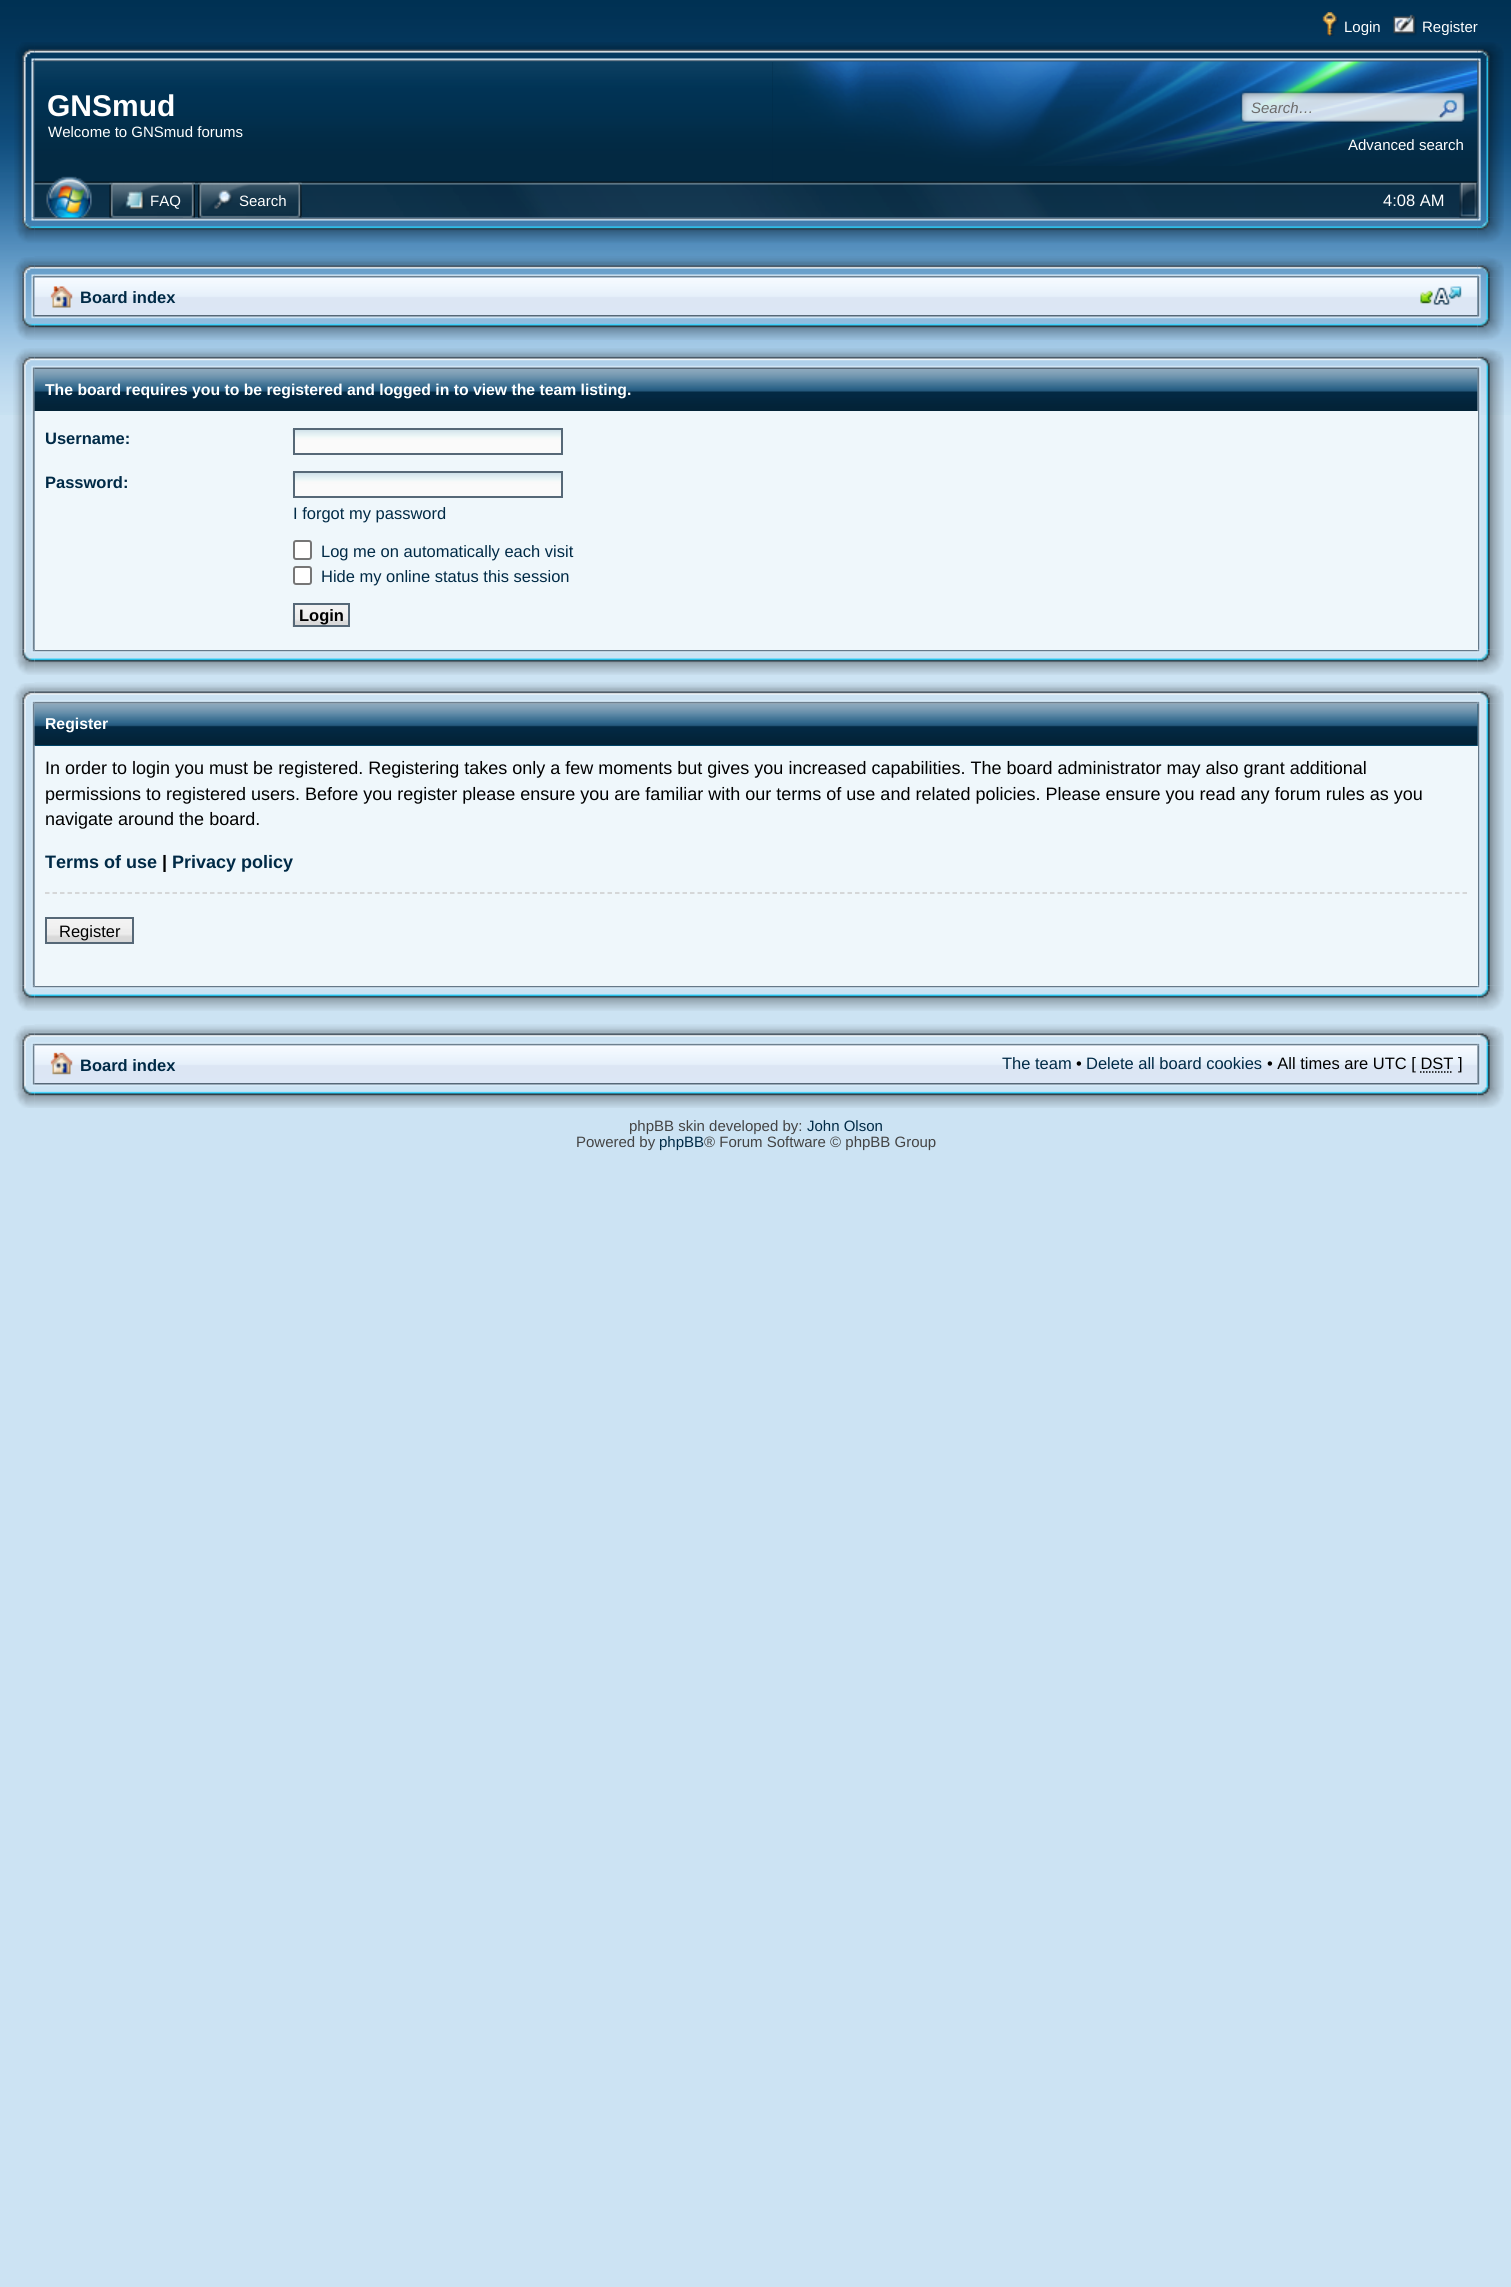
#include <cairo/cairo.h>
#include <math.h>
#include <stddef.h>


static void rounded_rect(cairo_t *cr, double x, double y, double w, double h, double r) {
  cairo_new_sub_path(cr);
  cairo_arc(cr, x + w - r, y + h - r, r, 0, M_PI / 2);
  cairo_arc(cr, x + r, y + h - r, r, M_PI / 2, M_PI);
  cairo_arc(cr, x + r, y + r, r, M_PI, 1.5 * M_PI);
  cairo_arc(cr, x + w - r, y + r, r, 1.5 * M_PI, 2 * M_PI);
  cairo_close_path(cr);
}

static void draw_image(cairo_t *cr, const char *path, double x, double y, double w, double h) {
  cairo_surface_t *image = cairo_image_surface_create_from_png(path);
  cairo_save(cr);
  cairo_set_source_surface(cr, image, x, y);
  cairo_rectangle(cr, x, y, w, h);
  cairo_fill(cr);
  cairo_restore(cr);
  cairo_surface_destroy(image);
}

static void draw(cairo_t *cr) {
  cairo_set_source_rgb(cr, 204 / 255.0, 227 / 255.0, 243 / 255.0);
  cairo_paint(cr);
  draw_image(cr, "images/1.png", 0, 0, 1511, 415);
  draw_image(cr, "images/2.png", 1322, 12, 17, 24);
  draw_image(cr, "images/3.png", 1393, 14, 24, 22);
  draw_image(cr, "images/4.png", 15, 42, 20, 20);
  draw_image(cr, "images/5.png", 34, 42, 1444, 20);
  draw_image(cr, "images/6.png", 1477, 42, 27, 20);
  draw_image(cr, "images/7.png", 14, 61, 21, 157);
  cairo_set_source_rgb(cr, 3 / 255.0, 41 / 255.0, 66 / 255.0);
  cairo_rectangle(cr, 35, 62, 1443, 120);
  cairo_fill(cr);
  draw_image(cr, "images/8.png", 34, 61, 739, 121);
  draw_image(cr, "images/9.png", 772, 61, 706, 105);
  draw_image(cr, "images/10.png", 1240, 91, 226, 32);
  draw_image(cr, "images/11.png", 1438, 99, 20, 20);
  draw_image(cr, "images/13.png", 34, 181, 1444, 37);
  draw_image(cr, "images/21.png", 1477, 61, 27, 157);
  draw_image(cr, "images/22.png", 13, 217, 22, 26);
  draw_image(cr, "images/23.png", 34, 217, 1444, 26);
  draw_image(cr, "images/12.png", 46, 176, 46, 42);
  draw_image(cr, "images/14.png", 109, 182, 86, 36);
  draw_image(cr, "images/15.png", 183, 182, 12, 36);
  draw_image(cr, "images/16.png", 125, 190, 20, 19);
  draw_image(cr, "images/17.png", 198, 182, 104, 36);
  draw_image(cr, "images/18.png", 289, 182, 13, 36);
  draw_image(cr, "images/19.png", 214, 190, 19, 19);
  draw_image(cr, "images/24.png", 1477, 217, 27, 26);
  draw_image(cr, "images/20.png", 1459, 182, 19, 36);
  draw_image(cr, "images/25.png", 13, 257, 22, 21);
  draw_image(cr, "images/26.png", 34, 256, 1444, 22);
  draw_image(cr, "images/27.png", 1477, 256, 27, 22);
  draw_image(cr, "images/28.png", 13, 277, 22, 38);
  draw_image(cr, "images/29.png", 34, 277, 1444, 38);
  draw_image(cr, "images/30.png", 50, 286, 23, 22);
  draw_image(cr, "images/31.png", 1420, 286, 42, 19);
  draw_image(cr, "images/32.png", 1477, 277, 27, 38);
  draw_image(cr, "images/33.png", 13, 315, 22, 25);
  draw_image(cr, "images/34.png", 34, 315, 1444, 25);
  draw_image(cr, "images/35.png", 1477, 315, 27, 25);
  draw_image(cr, "images/36.png", 13, 348, 22, 21);
  draw_image(cr, "images/37.png", 34, 348, 1444, 21);
  draw_image(cr, "images/38.png", 1477, 348, 27, 21);
  draw_image(cr, "images/39.png", 13, 369, 22, 281);
  draw_image(cr, "images/40.png", 34, 369, 1444, 42);
  draw_image(cr, "images/44.png", 1477, 369, 27, 281);
  draw_image(cr, "images/45.png", 13, 649, 22, 26);
  draw_image(cr, "images/46.png", 34, 649, 1444, 26);
  draw_image(cr, "images/47.png", 1477, 649, 27, 26);
  cairo_set_source_rgb(cr, 239 / 255.0, 247 / 255.0, 251 / 255.0);
  cairo_rectangle(cr, 35, 411, 1443, 239);
  cairo_fill(cr);
  cairo_set_source_rgb(cr, 250 / 255.0, 250 / 255.0, 250 / 255.0);
  cairo_rectangle(cr, 295, 441, 266, 12);
  cairo_fill(cr);
  draw_image(cr, "images/41.png", 292, 429, 269, 12);
  cairo_rectangle(cr, 294, 429, 268, 25);
  cairo_set_source_rgb(cr, 86 / 255.0, 104 / 255.0, 119 / 255.0);
  cairo_stroke(cr);
  cairo_set_source_rgb(cr, 250 / 255.0, 250 / 255.0, 250 / 255.0);
  cairo_rectangle(cr, 295, 484, 266, 12);
  cairo_fill(cr);
  draw_image(cr, "images/42.png", 292, 472, 269, 12);
  cairo_rectangle(cr, 294, 472, 268, 25);
  cairo_set_source_rgb(cr, 86 / 255.0, 104 / 255.0, 119 / 255.0);
  cairo_stroke(cr);
  cairo_set_source_rgb(cr, 1, 1, 1);
  rounded_rect(cr, 294, 541, 17, 18, 2);
  cairo_fill_preserve(cr);
  cairo_set_source_rgb(cr, 118 / 255.0, 118 / 255.0, 118 / 255.0);
  cairo_stroke(cr);
  cairo_set_source_rgb(cr, 1, 1, 1);
  rounded_rect(cr, 294, 567, 17, 17, 2);
  cairo_fill_preserve(cr);
  cairo_set_source_rgb(cr, 118 / 255.0, 118 / 255.0, 118 / 255.0);
  cairo_stroke(cr);
  draw_image(cr, "images/43.png", 292, 604, 56, 23);
  cairo_rectangle(cr, 294, 604, 55, 22);
  cairo_set_source_rgb(cr, 86 / 255.0, 104 / 255.0, 119 / 255.0);
  cairo_stroke(cr);
  draw_image(cr, "images/48.png", 13, 683, 22, 21);
  draw_image(cr, "images/49.png", 34, 682, 1444, 22);
  draw_image(cr, "images/50.png", 1477, 682, 27, 22);
  draw_image(cr, "images/51.png", 13, 703, 22, 283);
  cairo_set_source_rgb(cr, 0, 102 / 255.0, 153 / 255.0);
  cairo_rectangle(cr, 35, 704, 1443, 42);
  cairo_fill(cr);
  draw_image(cr, "images/52.png", 34, 704, 1444, 42);
  draw_image(cr, "images/54.png", 1477, 703, 27, 283);
  draw_image(cr, "images/45.png", 13, 985, 22, 26);
  draw_image(cr, "images/46.png", 34, 985, 1444, 26);
  draw_image(cr, "images/47.png", 1477, 985, 27, 26);
  cairo_set_source_rgb(cr, 239 / 255.0, 247 / 255.0, 251 / 255.0);
  cairo_rectangle(cr, 35, 746, 1443, 240);
  cairo_fill(cr);
  cairo_new_path(cr);
  cairo_move_to(cr, 45, 893);
  cairo_line_to(cr, 1467, 893);
  cairo_set_source_rgb(cr, 204 / 255.0, 204 / 255.0, 204 / 255.0);
  cairo_set_line_width(cr, 1.5);
  cairo_set_dash(cr, (double[]){4.5, 3}, 2, 0);
  cairo_stroke(cr);
  cairo_set_source_rgb(cr, 250 / 255.0, 250 / 255.0, 250 / 255.0);
  cairo_rectangle(cr, 47, 919, 85, 1);
  cairo_fill(cr);
  draw_image(cr, "images/53.png", 47, 919, 85, 23);
  cairo_rectangle(cr, 46, 918, 87, 25);
  cairo_set_source_rgb(cr, 86 / 255.0, 104 / 255.0, 119 / 255.0);
  cairo_set_line_width(cr, 2);
  cairo_set_dash(cr, NULL, 0, 0);
  cairo_stroke(cr);
  draw_image(cr, "images/48.png", 13, 1025, 22, 21);
  draw_image(cr, "images/49.png", 34, 1024, 1444, 22);
  draw_image(cr, "images/50.png", 1477, 1024, 27, 22);
  draw_image(cr, "images/55.png", 13, 1045, 22, 38);
  draw_image(cr, "images/56.png", 34, 1045, 1444, 38);
  draw_image(cr, "images/57.png", 50, 1052, 23, 23);
  cairo_new_path(cr);
  cairo_move_to(cr, 1420, 1072);
  cairo_line_to(cr, 1453, 1072);
  cairo_set_source_rgb(cr, 0, 0, 0);
  cairo_set_line_width(cr, 1.5);
  cairo_set_dash(cr, (double[]){1.5, 1.5}, 2, 0);
  cairo_stroke(cr);
  draw_image(cr, "images/58.png", 1477, 1045, 27, 38);
  draw_image(cr, "images/59.png", 13, 1083, 22, 25);
  draw_image(cr, "images/60.png", 34, 1083, 1444, 25);
  draw_image(cr, "images/61.png", 1477, 1083, 27, 25);
  cairo_select_font_face(cr, "Liberation Sans", CAIRO_FONT_SLANT_NORMAL, CAIRO_FONT_WEIGHT_NORMAL);
  cairo_set_font_size(cr, 15);
  cairo_set_source_rgb(cr, 1, 1, 1);
  cairo_move_to(cr, 1344, 32);
  cairo_show_text(cr, "Login");
  cairo_move_to(cr, 1422, 32);
  cairo_show_text(cr, "Register");
  cairo_select_font_face(cr, "Liberation Sans", CAIRO_FONT_SLANT_NORMAL, CAIRO_FONT_WEIGHT_BOLD);
  cairo_set_font_size(cr, 30);
  cairo_move_to(cr, 47, 116);
  cairo_show_text(cr, "GNSmud");
  cairo_select_font_face(cr, "Liberation Sans", CAIRO_FONT_SLANT_NORMAL, CAIRO_FONT_WEIGHT_NORMAL);
  cairo_set_font_size(cr, 15);
  cairo_move_to(cr, 48, 137);
  cairo_show_text(cr, "Welcome to GNSmud forums");
  cairo_select_font_face(cr, "Liberation Sans", CAIRO_FONT_SLANT_ITALIC, CAIRO_FONT_WEIGHT_NORMAL);
  cairo_set_source_rgb(cr, 108 / 255.0, 108 / 255.0, 108 / 255.0);
  cairo_move_to(cr, 1251, 113);
  cairo_show_text(cr, "Search…");
  cairo_select_font_face(cr, "Liberation Sans", CAIRO_FONT_SLANT_NORMAL, CAIRO_FONT_WEIGHT_NORMAL);
  cairo_set_source_rgb(cr, 1, 1, 1);
  cairo_move_to(cr, 1348, 150);
  cairo_show_text(cr, "Advanced search");
  cairo_move_to(cr, 150, 206);
  cairo_show_text(cr, "FAQ");
  cairo_move_to(cr, 239, 206);
  cairo_show_text(cr, "Search");
  cairo_set_font_size(cr, 16.5);
  cairo_move_to(cr, 1383, 206);
  cairo_show_text(cr, "4:08 AM");
  cairo_select_font_face(cr, "Liberation Sans", CAIRO_FONT_SLANT_NORMAL, CAIRO_FONT_WEIGHT_BOLD);
  cairo_set_source_rgb(cr, 0, 42 / 255.0, 70 / 255.0);
  cairo_move_to(cr, 80, 303);
  cairo_show_text(cr, "Board index");
  cairo_set_font_size(cr, 15.75);
  cairo_set_source_rgb(cr, 1, 1, 1);
  cairo_move_to(cr, 45, 395);
  cairo_show_text(cr, "The board requires you to be registered and logged in to view the team listing.");
  cairo_set_font_size(cr, 16.5);
  cairo_set_source_rgb(cr, 0, 42 / 255.0, 70 / 255.0);
  cairo_move_to(cr, 45, 444);
  cairo_show_text(cr, "Username:");
  cairo_move_to(cr, 45, 488);
  cairo_show_text(cr, "Password:");
  cairo_select_font_face(cr, "Liberation Sans", CAIRO_FONT_SLANT_NORMAL, CAIRO_FONT_WEIGHT_NORMAL);
  cairo_move_to(cr, 293, 519);
  cairo_show_text(cr, "I forgot my password");
  cairo_move_to(cr, 321, 557);
  cairo_show_text(cr, "Log me on automatically each visit");
  cairo_move_to(cr, 321, 582);
  cairo_show_text(cr, "Hide my online status this session");
  cairo_select_font_face(cr, "Liberation Sans", CAIRO_FONT_SLANT_NORMAL, CAIRO_FONT_WEIGHT_BOLD);
  cairo_set_source_rgb(cr, 0, 0, 0);
  cairo_move_to(cr, 299, 621);
  cairo_show_text(cr, "Login");
  cairo_set_font_size(cr, 15.75);
  cairo_set_source_rgb(cr, 1, 1, 1);
  cairo_move_to(cr, 45, 729);
  cairo_show_text(cr, "Register");
  cairo_select_font_face(cr, "Liberation Sans", CAIRO_FONT_SLANT_NORMAL, CAIRO_FONT_WEIGHT_NORMAL);
  cairo_set_font_size(cr, 18);
  cairo_set_source_rgb(cr, 0, 0, 0);
  cairo_move_to(cr, 45, 774);
  cairo_show_text(cr, "In order to login you must be registered. Registering takes only a few moments but gives you increased capabilities. The board administrator may also grant additional");
  cairo_move_to(cr, 45, 800);
  cairo_show_text(cr, "permissions to registered users. Before you register please ensure you are familiar with our terms of use and related policies. Please ensure you read any forum rules as you");
  cairo_move_to(cr, 45, 825);
  cairo_show_text(cr, "navigate around the board.");
  cairo_select_font_face(cr, "Liberation Sans", CAIRO_FONT_SLANT_NORMAL, CAIRO_FONT_WEIGHT_BOLD);
  cairo_set_source_rgb(cr, 0, 42 / 255.0, 70 / 255.0);
  cairo_move_to(cr, 45, 868);
  cairo_show_text(cr, "Terms of use");
  cairo_set_source_rgb(cr, 0, 0, 0);
  cairo_move_to(cr, 162, 868);
  cairo_show_text(cr, "|");
  cairo_set_source_rgb(cr, 0, 42 / 255.0, 70 / 255.0);
  cairo_move_to(cr, 172, 868);
  cairo_show_text(cr, "Privacy policy");
  cairo_select_font_face(cr, "Liberation Sans", CAIRO_FONT_SLANT_NORMAL, CAIRO_FONT_WEIGHT_NORMAL);
  cairo_set_font_size(cr, 16.5);
  cairo_set_source_rgb(cr, 0, 0, 0);
  cairo_move_to(cr, 59, 937);
  cairo_show_text(cr, "Register");
  cairo_select_font_face(cr, "Liberation Sans", CAIRO_FONT_SLANT_NORMAL, CAIRO_FONT_WEIGHT_BOLD);
  cairo_set_source_rgb(cr, 0, 42 / 255.0, 70 / 255.0);
  cairo_move_to(cr, 80, 1071);
  cairo_show_text(cr, "Board index");
  cairo_select_font_face(cr, "Liberation Sans", CAIRO_FONT_SLANT_NORMAL, CAIRO_FONT_WEIGHT_NORMAL);
  cairo_move_to(cr, 1002, 1069);
  cairo_show_text(cr, "The team");
  cairo_set_source_rgb(cr, 0, 0, 0);
  cairo_move_to(cr, 1076, 1069);
  cairo_show_text(cr, "•");
  cairo_set_source_rgb(cr, 0, 42 / 255.0, 70 / 255.0);
  cairo_move_to(cr, 1086, 1069);
  cairo_show_text(cr, "Delete all board cookies");
  cairo_set_source_rgb(cr, 0, 0, 0);
  cairo_move_to(cr, 1267, 1069);
  cairo_show_text(cr, "• All times are UTC [ DST ]");
  cairo_set_font_size(cr, 15);
  cairo_set_source_rgb(cr, 68 / 255.0, 68 / 255.0, 68 / 255.0);
  cairo_move_to(cr, 629, 1131);
  cairo_show_text(cr, "phpBB skin developed by:");
  cairo_set_source_rgb(cr, 0, 42 / 255.0, 70 / 255.0);
  cairo_move_to(cr, 807, 1131);
  cairo_show_text(cr, "John Olson");
  cairo_set_source_rgb(cr, 68 / 255.0, 68 / 255.0, 68 / 255.0);
  cairo_move_to(cr, 576, 1147);
  cairo_show_text(cr, "Powered by");
  cairo_set_source_rgb(cr, 0, 42 / 255.0, 70 / 255.0);
  cairo_move_to(cr, 659, 1147);
  cairo_show_text(cr, "phpBB");
  cairo_set_source_rgb(cr, 68 / 255.0, 68 / 255.0, 68 / 255.0);
  cairo_move_to(cr, 704, 1147);
  cairo_show_text(cr, "® Forum Software © phpBB Group");
}

int main(void) {
  cairo_surface_t *surface = cairo_image_surface_create(CAIRO_FORMAT_RGB24, 1511, 2287);
  cairo_t *cr = cairo_create(surface);
  cairo_font_options_t *options = cairo_font_options_create();
  cairo_font_options_set_hint_metrics(options, CAIRO_HINT_METRICS_OFF);
  cairo_font_options_set_hint_style(options, CAIRO_HINT_STYLE_NONE);
  cairo_set_font_options(cr, options);
  cairo_set_miter_limit(cr, 4);
  draw(cr);
  cairo_surface_write_to_png(surface, "out.png");
  cairo_font_options_destroy(options);
  cairo_destroy(cr);
  cairo_surface_destroy(surface);
  return 0;
}
